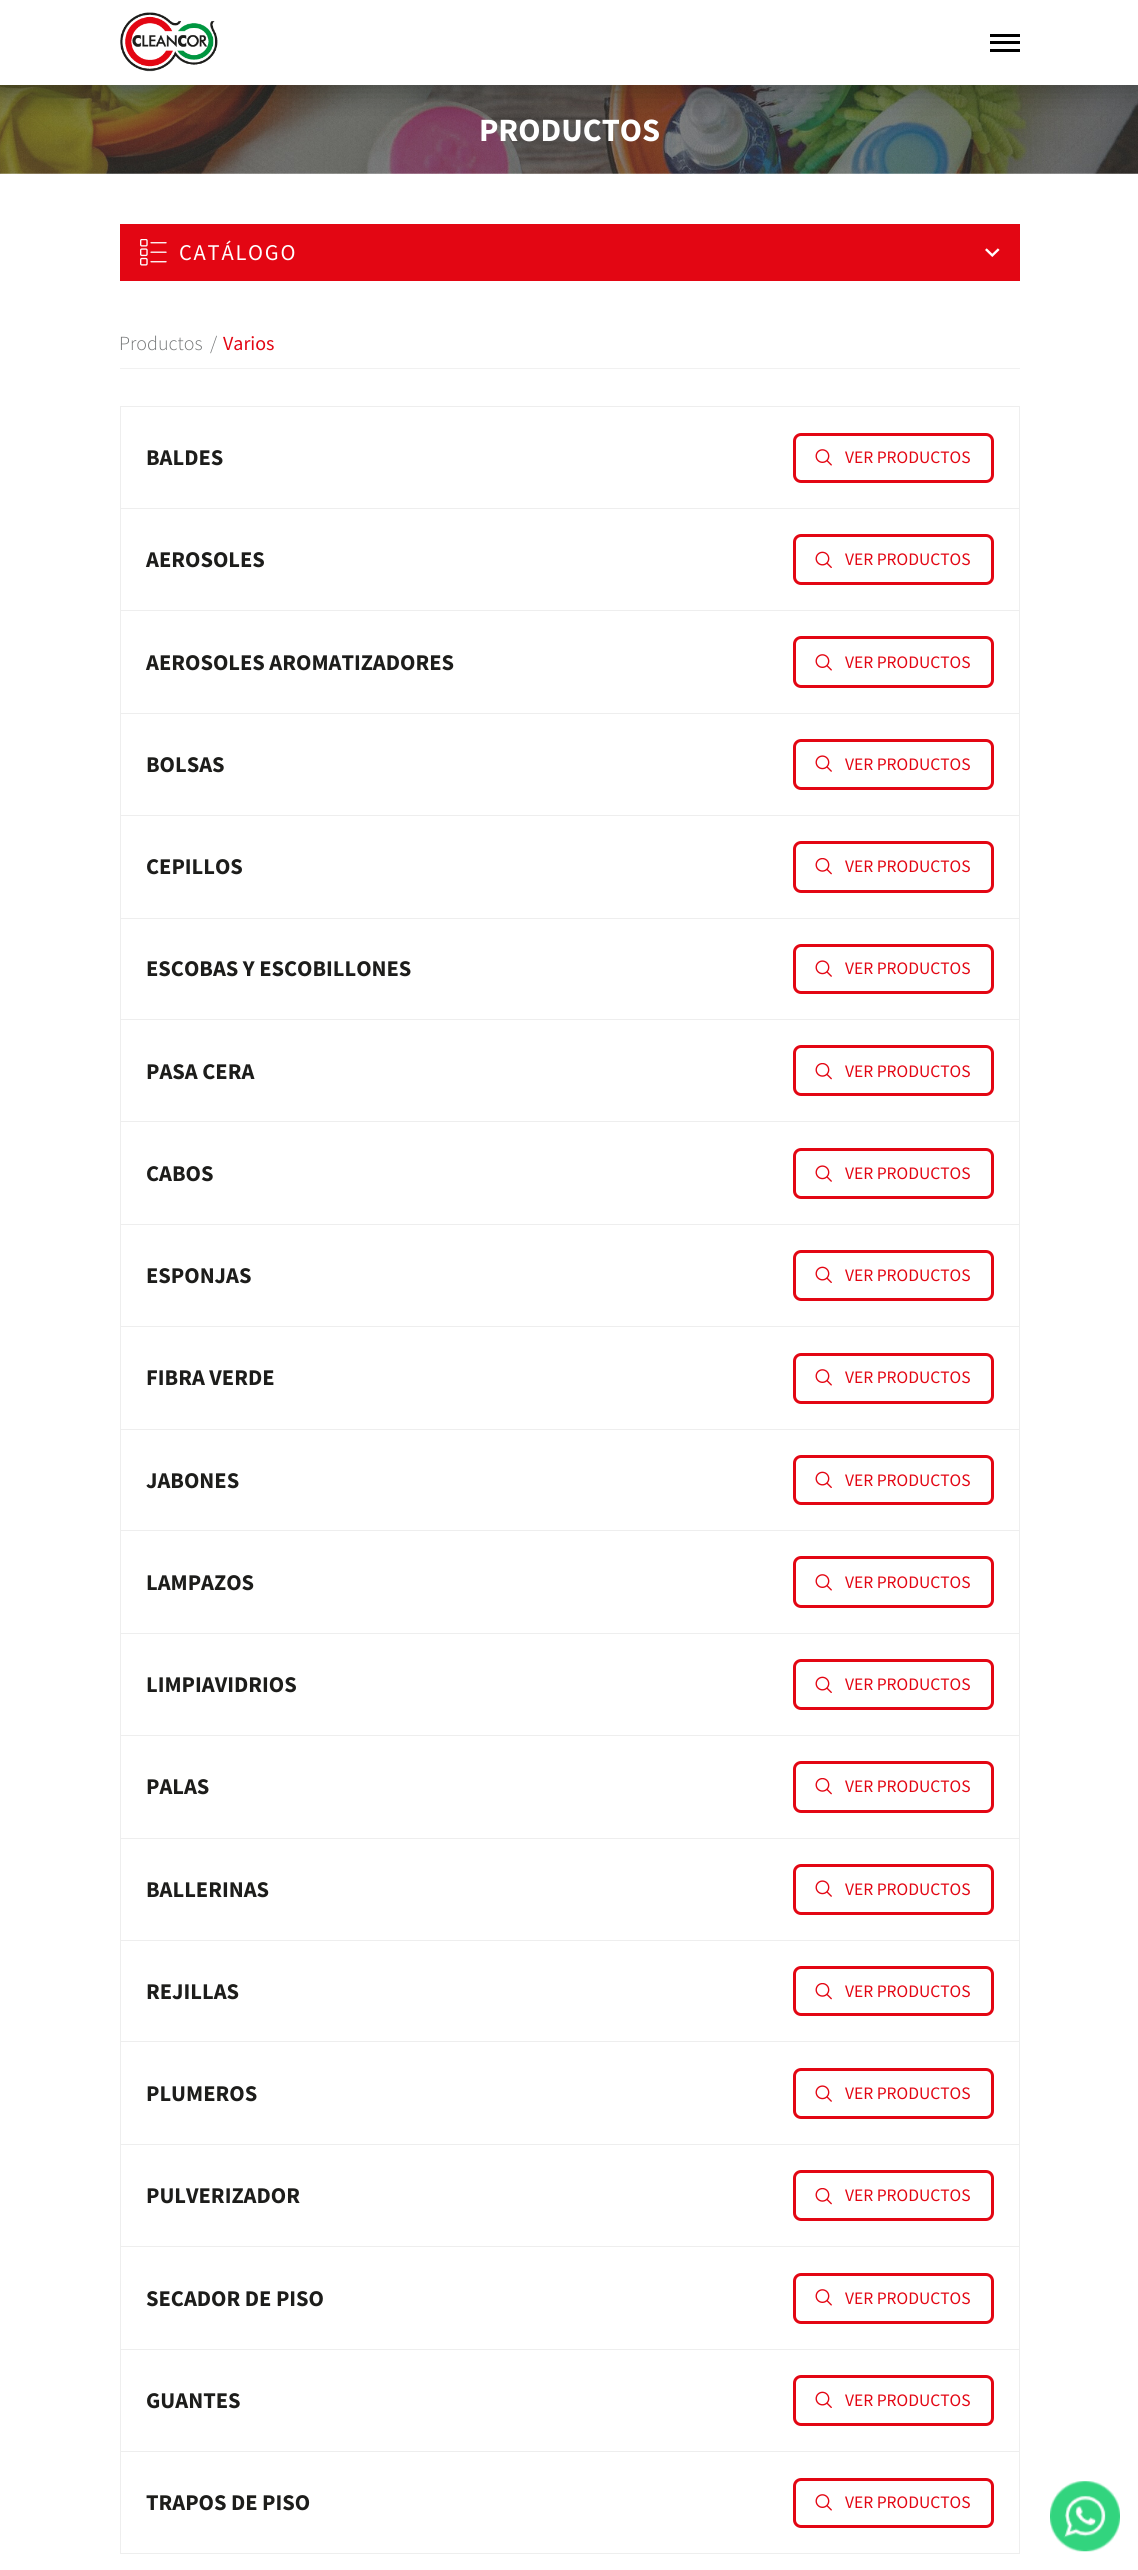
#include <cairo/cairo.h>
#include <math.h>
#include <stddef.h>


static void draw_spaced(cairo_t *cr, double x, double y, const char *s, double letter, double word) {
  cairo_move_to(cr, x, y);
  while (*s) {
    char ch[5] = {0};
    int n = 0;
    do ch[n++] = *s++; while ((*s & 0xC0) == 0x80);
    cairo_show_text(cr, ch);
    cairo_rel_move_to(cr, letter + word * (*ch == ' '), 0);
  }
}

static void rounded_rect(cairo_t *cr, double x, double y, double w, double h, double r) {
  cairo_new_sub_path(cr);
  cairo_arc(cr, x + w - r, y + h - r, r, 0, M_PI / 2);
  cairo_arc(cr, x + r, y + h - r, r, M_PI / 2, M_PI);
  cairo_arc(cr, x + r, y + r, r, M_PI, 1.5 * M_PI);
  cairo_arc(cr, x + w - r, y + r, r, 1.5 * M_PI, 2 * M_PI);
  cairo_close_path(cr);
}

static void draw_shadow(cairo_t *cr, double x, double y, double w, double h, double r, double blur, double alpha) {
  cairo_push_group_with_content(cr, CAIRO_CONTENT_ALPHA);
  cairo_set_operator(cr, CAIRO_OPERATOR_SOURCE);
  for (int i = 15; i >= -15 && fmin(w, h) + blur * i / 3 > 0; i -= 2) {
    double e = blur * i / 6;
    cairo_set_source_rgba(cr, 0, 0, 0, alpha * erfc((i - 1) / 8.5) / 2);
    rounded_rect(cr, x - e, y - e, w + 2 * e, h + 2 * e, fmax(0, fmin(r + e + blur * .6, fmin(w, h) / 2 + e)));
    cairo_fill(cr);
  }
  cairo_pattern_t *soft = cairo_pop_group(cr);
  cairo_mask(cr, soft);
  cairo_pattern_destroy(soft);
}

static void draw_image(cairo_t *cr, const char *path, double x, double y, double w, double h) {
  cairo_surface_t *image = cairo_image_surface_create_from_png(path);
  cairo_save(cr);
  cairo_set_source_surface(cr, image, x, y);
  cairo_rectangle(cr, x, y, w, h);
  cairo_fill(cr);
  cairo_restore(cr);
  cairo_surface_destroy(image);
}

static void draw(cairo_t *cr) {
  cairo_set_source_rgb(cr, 1, 1, 1);
  cairo_paint(cr);
  draw_image(cr, "images/2.png", 0, 85, 1138, 89);
  cairo_save(cr);
  cairo_rectangle(cr, 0, 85, 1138, 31);
  cairo_clip(cr);
  cairo_set_source_rgb(cr, 17 / 255.0, 18 / 255.0, 17 / 255.0);
  draw_shadow(cr, 0, 6, 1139, 85, 0, 15, 0.4);
  cairo_restore(cr);
  draw_image(cr, "images/1.png", 120, 12, 98, 60);
  cairo_set_source_rgb(cr, 0, 0, 0);
  cairo_rectangle(cr, 990, 34, 30, 3);
  cairo_fill(cr);
  cairo_rectangle(cr, 990, 41, 30, 3);
  cairo_fill(cr);
  cairo_rectangle(cr, 990, 49, 30, 3);
  cairo_fill(cr);
  cairo_set_source_rgb(cr, 227 / 255.0, 6 / 255.0, 19 / 255.0);
  cairo_rectangle(cr, 120, 224, 900, 57);
  cairo_fill(cr);
  draw_image(cr, "images/3.png", 140, 239, 27, 27);
  draw_image(cr, "images/4.png", 985, 248, 15, 9);
  cairo_set_source_rgb(cr, 241 / 255.0, 241 / 255.0, 241 / 255.0);
  cairo_rectangle(cr, 120, 368, 900, 1);
  cairo_fill(cr);
  cairo_rectangle(cr, 120.5, 406.5, 899, 102);
  cairo_set_source_rgb(cr, 238 / 255.0, 238 / 255.0, 238 / 255.0);
  cairo_set_line_width(cr, 1);
  cairo_stroke(cr);
  rounded_rect(cr, 794.5, 434.5, 198, 47, 6.5);
  cairo_set_source_rgb(cr, 227 / 255.0, 6 / 255.0, 19 / 255.0);
  cairo_set_line_width(cr, 3);
  cairo_stroke(cr);
  draw_image(cr, "images/5.png", 815, 449, 17, 17);
  cairo_rectangle(cr, 120.5, 508.5, 899, 102);
  cairo_set_source_rgb(cr, 238 / 255.0, 238 / 255.0, 238 / 255.0);
  cairo_set_line_width(cr, 1);
  cairo_stroke(cr);
  rounded_rect(cr, 794.5, 535.5, 198, 48, 6.5);
  cairo_set_source_rgb(cr, 227 / 255.0, 6 / 255.0, 19 / 255.0);
  cairo_set_line_width(cr, 3);
  cairo_stroke(cr);
  draw_image(cr, "images/6.png", 815, 551, 17, 17);
  cairo_rectangle(cr, 120.5, 610.5, 899, 103);
  cairo_set_source_rgb(cr, 238 / 255.0, 238 / 255.0, 238 / 255.0);
  cairo_set_line_width(cr, 1);
  cairo_stroke(cr);
  rounded_rect(cr, 794.5, 637.5, 198, 49, 6.5);
  cairo_set_source_rgb(cr, 227 / 255.0, 6 / 255.0, 19 / 255.0);
  cairo_set_line_width(cr, 3);
  cairo_stroke(cr);
  draw_image(cr, "images/5.png", 815, 654, 17, 17);
  cairo_rectangle(cr, 120.5, 713.5, 899, 102);
  cairo_set_source_rgb(cr, 238 / 255.0, 238 / 255.0, 238 / 255.0);
  cairo_set_line_width(cr, 1);
  cairo_stroke(cr);
  rounded_rect(cr, 794.5, 740.5, 198, 48, 6.5);
  cairo_set_source_rgb(cr, 227 / 255.0, 6 / 255.0, 19 / 255.0);
  cairo_set_line_width(cr, 3);
  cairo_stroke(cr);
  draw_image(cr, "images/7.png", 815, 755, 17, 17);
  cairo_rectangle(cr, 120.5, 815.5, 899, 103);
  cairo_set_source_rgb(cr, 238 / 255.0, 238 / 255.0, 238 / 255.0);
  cairo_set_line_width(cr, 1);
  cairo_stroke(cr);
  rounded_rect(cr, 794.5, 842.5, 198, 49, 6.5);
  cairo_set_source_rgb(cr, 227 / 255.0, 6 / 255.0, 19 / 255.0);
  cairo_set_line_width(cr, 3);
  cairo_stroke(cr);
  draw_image(cr, "images/8.png", 815, 858, 17, 17);
  cairo_rectangle(cr, 120.5, 918.5, 899, 101);
  cairo_set_source_rgb(cr, 238 / 255.0, 238 / 255.0, 238 / 255.0);
  cairo_set_line_width(cr, 1);
  cairo_stroke(cr);
  rounded_rect(cr, 794.5, 945.5, 198, 47, 6.5);
  cairo_set_source_rgb(cr, 227 / 255.0, 6 / 255.0, 19 / 255.0);
  cairo_set_line_width(cr, 3);
  cairo_stroke(cr);
  draw_image(cr, "images/7.png", 815, 960, 17, 17);
  cairo_rectangle(cr, 120.5, 1019.5, 899, 103);
  cairo_set_source_rgb(cr, 238 / 255.0, 238 / 255.0, 238 / 255.0);
  cairo_set_line_width(cr, 1);
  cairo_stroke(cr);
  rounded_rect(cr, 794.5, 1046.5, 198, 48, 6.5);
  cairo_set_source_rgb(cr, 227 / 255.0, 6 / 255.0, 19 / 255.0);
  cairo_set_line_width(cr, 3);
  cairo_stroke(cr);
  draw_image(cr, "images/8.png", 815, 1063, 17, 17);
  cairo_set_source_rgb(cr, 1, 1, 1);
  cairo_rectangle(cr, 121, 1122, 898, 1);
  cairo_fill(cr);
  cairo_rectangle(cr, 120.5, 1121.5, 899, 103);
  cairo_set_source_rgb(cr, 238 / 255.0, 238 / 255.0, 238 / 255.0);
  cairo_set_line_width(cr, 1);
  cairo_stroke(cr);
  rounded_rect(cr, 794.5, 1149.5, 198, 48, 6.5);
  cairo_set_source_rgb(cr, 227 / 255.0, 6 / 255.0, 19 / 255.0);
  cairo_set_line_width(cr, 3);
  cairo_stroke(cr);
  draw_image(cr, "images/7.png", 815, 1165, 17, 17);
  cairo_rectangle(cr, 120.5, 1224.5, 899, 103);
  cairo_set_source_rgb(cr, 238 / 255.0, 238 / 255.0, 238 / 255.0);
  cairo_set_line_width(cr, 1);
  cairo_stroke(cr);
  rounded_rect(cr, 794.5, 1251.5, 198, 48, 6.5);
  cairo_set_source_rgb(cr, 227 / 255.0, 6 / 255.0, 19 / 255.0);
  cairo_set_line_width(cr, 3);
  cairo_stroke(cr);
  draw_image(cr, "images/6.png", 815, 1266, 17, 17);
  cairo_set_source_rgb(cr, 1, 1, 1);
  cairo_rectangle(cr, 121, 1327, 898, 1);
  cairo_fill(cr);
  cairo_rectangle(cr, 120.5, 1326.5, 899, 103);
  cairo_set_source_rgb(cr, 238 / 255.0, 238 / 255.0, 238 / 255.0);
  cairo_set_line_width(cr, 1);
  cairo_stroke(cr);
  rounded_rect(cr, 794.5, 1354.5, 198, 48, 6.5);
  cairo_set_source_rgb(cr, 227 / 255.0, 6 / 255.0, 19 / 255.0);
  cairo_set_line_width(cr, 3);
  cairo_stroke(cr);
  draw_image(cr, "images/5.png", 815, 1369, 17, 17);
  cairo_rectangle(cr, 120.5, 1429.5, 899, 101);
  cairo_set_source_rgb(cr, 238 / 255.0, 238 / 255.0, 238 / 255.0);
  cairo_set_line_width(cr, 1);
  cairo_stroke(cr);
  rounded_rect(cr, 794.5, 1456.5, 198, 47, 6.5);
  cairo_set_source_rgb(cr, 227 / 255.0, 6 / 255.0, 19 / 255.0);
  cairo_set_line_width(cr, 3);
  cairo_stroke(cr);
  draw_image(cr, "images/6.png", 815, 1471, 17, 17);
  cairo_rectangle(cr, 120.5, 1530.5, 899, 103);
  cairo_set_source_rgb(cr, 238 / 255.0, 238 / 255.0, 238 / 255.0);
  cairo_set_line_width(cr, 1);
  cairo_stroke(cr);
  rounded_rect(cr, 794.5, 1557.5, 198, 49, 6.5);
  cairo_set_source_rgb(cr, 227 / 255.0, 6 / 255.0, 19 / 255.0);
  cairo_set_line_width(cr, 3);
  cairo_stroke(cr);
  draw_image(cr, "images/5.png", 815, 1574, 17, 17);
  cairo_rectangle(cr, 120.5, 1633.5, 899, 102);
  cairo_set_source_rgb(cr, 238 / 255.0, 238 / 255.0, 238 / 255.0);
  cairo_set_line_width(cr, 1);
  cairo_stroke(cr);
  rounded_rect(cr, 794.5, 1660.5, 198, 48, 6.5);
  cairo_set_source_rgb(cr, 227 / 255.0, 6 / 255.0, 19 / 255.0);
  cairo_set_line_width(cr, 3);
  cairo_stroke(cr);
  draw_image(cr, "images/6.png", 815, 1676, 17, 17);
  cairo_rectangle(cr, 120.5, 1735.5, 899, 103);
  cairo_set_source_rgb(cr, 238 / 255.0, 238 / 255.0, 238 / 255.0);
  cairo_set_line_width(cr, 1);
  cairo_stroke(cr);
  rounded_rect(cr, 794.5, 1762.5, 198, 49, 6.5);
  cairo_set_source_rgb(cr, 227 / 255.0, 6 / 255.0, 19 / 255.0);
  cairo_set_line_width(cr, 3);
  cairo_stroke(cr);
  draw_image(cr, "images/8.png", 815, 1778, 17, 17);
  cairo_rectangle(cr, 120.5, 1838.5, 899, 102);
  cairo_set_source_rgb(cr, 238 / 255.0, 238 / 255.0, 238 / 255.0);
  cairo_set_line_width(cr, 1);
  cairo_stroke(cr);
  rounded_rect(cr, 794.5, 1865.5, 198, 48, 6.5);
  cairo_set_source_rgb(cr, 227 / 255.0, 6 / 255.0, 19 / 255.0);
  cairo_set_line_width(cr, 3);
  cairo_stroke(cr);
  draw_image(cr, "images/7.png", 815, 1880, 17, 17);
  cairo_rectangle(cr, 120.5, 1940.5, 899, 102);
  cairo_set_source_rgb(cr, 238 / 255.0, 238 / 255.0, 238 / 255.0);
  cairo_set_line_width(cr, 1);
  cairo_stroke(cr);
  rounded_rect(cr, 794.5, 1967.5, 198, 47, 6.5);
  cairo_set_source_rgb(cr, 227 / 255.0, 6 / 255.0, 19 / 255.0);
  cairo_set_line_width(cr, 3);
  cairo_stroke(cr);
  draw_image(cr, "images/8.png", 815, 1983, 17, 17);
  cairo_set_source_rgb(cr, 1, 1, 1);
  cairo_rectangle(cr, 121, 2042, 898, 1);
  cairo_fill(cr);
  cairo_rectangle(cr, 120.5, 2041.5, 899, 103);
  cairo_set_source_rgb(cr, 238 / 255.0, 238 / 255.0, 238 / 255.0);
  cairo_set_line_width(cr, 1);
  cairo_stroke(cr);
  rounded_rect(cr, 794.5, 2069.5, 198, 48, 6.5);
  cairo_set_source_rgb(cr, 227 / 255.0, 6 / 255.0, 19 / 255.0);
  cairo_set_line_width(cr, 3);
  cairo_stroke(cr);
  draw_image(cr, "images/7.png", 815, 2085, 17, 17);
  cairo_rectangle(cr, 120.5, 2144.5, 899, 103);
  cairo_set_source_rgb(cr, 238 / 255.0, 238 / 255.0, 238 / 255.0);
  cairo_set_line_width(cr, 1);
  cairo_stroke(cr);
  rounded_rect(cr, 794.5, 2171.5, 198, 48, 6.5);
  cairo_set_source_rgb(cr, 227 / 255.0, 6 / 255.0, 19 / 255.0);
  cairo_set_line_width(cr, 3);
  cairo_stroke(cr);
  draw_image(cr, "images/8.png", 815, 2188, 17, 17);
  cairo_set_source_rgb(cr, 1, 1, 1);
  cairo_rectangle(cr, 121, 2247, 898, 1);
  cairo_fill(cr);
  cairo_rectangle(cr, 120.5, 2246.5, 899, 103);
  cairo_set_source_rgb(cr, 238 / 255.0, 238 / 255.0, 238 / 255.0);
  cairo_set_line_width(cr, 1);
  cairo_stroke(cr);
  rounded_rect(cr, 794.5, 2274.5, 198, 48, 6.5);
  cairo_set_source_rgb(cr, 227 / 255.0, 6 / 255.0, 19 / 255.0);
  cairo_set_line_width(cr, 3);
  cairo_stroke(cr);
  draw_image(cr, "images/5.png", 815, 2289, 17, 17);
  cairo_rectangle(cr, 120.5, 2349.5, 899, 103);
  cairo_set_source_rgb(cr, 238 / 255.0, 238 / 255.0, 238 / 255.0);
  cairo_set_line_width(cr, 1);
  cairo_stroke(cr);
  rounded_rect(cr, 794.5, 2376.5, 198, 48, 6.5);
  cairo_set_source_rgb(cr, 227 / 255.0, 6 / 255.0, 19 / 255.0);
  cairo_set_line_width(cr, 3);
  cairo_stroke(cr);
  draw_image(cr, "images/6.png", 815, 2391, 17, 17);
  cairo_set_source_rgb(cr, 1, 1, 1);
  cairo_rectangle(cr, 121, 2452, 898, 1);
  cairo_fill(cr);
  cairo_rectangle(cr, 120.5, 2451.5, 899, 102);
  cairo_set_source_rgb(cr, 238 / 255.0, 238 / 255.0, 238 / 255.0);
  cairo_set_line_width(cr, 1);
  cairo_stroke(cr);
  rounded_rect(cr, 794.5, 2479.5, 198, 47, 6.5);
  cairo_set_source_rgb(cr, 227 / 255.0, 6 / 255.0, 19 / 255.0);
  cairo_set_line_width(cr, 3);
  cairo_stroke(cr);
  draw_image(cr, "images/5.png", 815, 2494, 17, 17);
  draw_image(cr, "images/9.png", 1050, 2481, 70, 71);
  cairo_select_font_face(cr, "Source Sans Pro", CAIRO_FONT_SLANT_NORMAL, CAIRO_FONT_WEIGHT_BOLD);
  cairo_set_font_size(cr, 32.5);
  cairo_set_source_rgb(cr, 1, 1, 1);
  cairo_move_to(cr, 479, 141);
  cairo_show_text(cr, "PRODUCTOS");
  cairo_select_font_face(cr, "Source Sans Pro", CAIRO_FONT_SLANT_NORMAL, CAIRO_FONT_WEIGHT_NORMAL);
  cairo_set_font_size(cr, 22.5);
  draw_spaced(cr, 179, 260, "CATÁLOGO", 1.75, 0);
  cairo_select_font_face(cr, "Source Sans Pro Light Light", CAIRO_FONT_SLANT_NORMAL, CAIRO_FONT_WEIGHT_NORMAL);
  cairo_set_font_size(cr, 20);
  cairo_set_source_rgb(cr, 116 / 255.0, 118 / 255.0, 119 / 255.0);
  cairo_move_to(cr, 119, 350);
  cairo_show_text(cr, "Productos");
  cairo_move_to(cr, 210, 350);
  cairo_show_text(cr, "/");
  cairo_select_font_face(cr, "Source Sans Pro", CAIRO_FONT_SLANT_NORMAL, CAIRO_FONT_WEIGHT_NORMAL);
  cairo_set_source_rgb(cr, 227 / 255.0, 6 / 255.0, 19 / 255.0);
  cairo_move_to(cr, 223, 350);
  cairo_show_text(cr, "Varios");
  cairo_select_font_face(cr, "Source Sans Pro", CAIRO_FONT_SLANT_NORMAL, CAIRO_FONT_WEIGHT_BOLD);
  cairo_set_font_size(cr, 22.5);
  cairo_set_source_rgb(cr, 29 / 255.0, 29 / 255.0, 27 / 255.0);
  cairo_move_to(cr, 146, 465);
  cairo_show_text(cr, "BALDES");
  cairo_select_font_face(cr, "Source Sans Pro", CAIRO_FONT_SLANT_NORMAL, CAIRO_FONT_WEIGHT_NORMAL);
  cairo_set_font_size(cr, 17.5);
  cairo_set_source_rgb(cr, 227 / 255.0, 6 / 255.0, 19 / 255.0);
  cairo_move_to(cr, 845, 463);
  cairo_show_text(cr, "VER PRODUCTOS");
  cairo_select_font_face(cr, "Source Sans Pro", CAIRO_FONT_SLANT_NORMAL, CAIRO_FONT_WEIGHT_BOLD);
  cairo_set_font_size(cr, 22.5);
  cairo_set_source_rgb(cr, 29 / 255.0, 29 / 255.0, 27 / 255.0);
  cairo_move_to(cr, 146, 567);
  cairo_show_text(cr, "AEROSOLES");
  cairo_select_font_face(cr, "Source Sans Pro", CAIRO_FONT_SLANT_NORMAL, CAIRO_FONT_WEIGHT_NORMAL);
  cairo_set_font_size(cr, 17.5);
  cairo_set_source_rgb(cr, 227 / 255.0, 6 / 255.0, 19 / 255.0);
  cairo_move_to(cr, 845, 565);
  cairo_show_text(cr, "VER PRODUCTOS");
  cairo_select_font_face(cr, "Source Sans Pro", CAIRO_FONT_SLANT_NORMAL, CAIRO_FONT_WEIGHT_BOLD);
  cairo_set_font_size(cr, 22.5);
  cairo_set_source_rgb(cr, 29 / 255.0, 29 / 255.0, 27 / 255.0);
  cairo_move_to(cr, 146, 670);
  cairo_show_text(cr, "AEROSOLES AROMATIZADORES");
  cairo_select_font_face(cr, "Source Sans Pro", CAIRO_FONT_SLANT_NORMAL, CAIRO_FONT_WEIGHT_NORMAL);
  cairo_set_font_size(cr, 17.5);
  cairo_set_source_rgb(cr, 227 / 255.0, 6 / 255.0, 19 / 255.0);
  cairo_move_to(cr, 845, 668);
  cairo_show_text(cr, "VER PRODUCTOS");
  cairo_select_font_face(cr, "Source Sans Pro", CAIRO_FONT_SLANT_NORMAL, CAIRO_FONT_WEIGHT_BOLD);
  cairo_set_font_size(cr, 22.5);
  cairo_set_source_rgb(cr, 29 / 255.0, 29 / 255.0, 27 / 255.0);
  cairo_move_to(cr, 146, 772);
  cairo_show_text(cr, "BOLSAS");
  cairo_select_font_face(cr, "Source Sans Pro", CAIRO_FONT_SLANT_NORMAL, CAIRO_FONT_WEIGHT_NORMAL);
  cairo_set_font_size(cr, 17.5);
  cairo_set_source_rgb(cr, 227 / 255.0, 6 / 255.0, 19 / 255.0);
  cairo_move_to(cr, 845, 770);
  cairo_show_text(cr, "VER PRODUCTOS");
  cairo_select_font_face(cr, "Source Sans Pro", CAIRO_FONT_SLANT_NORMAL, CAIRO_FONT_WEIGHT_BOLD);
  cairo_set_font_size(cr, 22.5);
  cairo_set_source_rgb(cr, 29 / 255.0, 29 / 255.0, 27 / 255.0);
  cairo_move_to(cr, 146, 874);
  cairo_show_text(cr, "CEPILLOS");
  cairo_select_font_face(cr, "Source Sans Pro", CAIRO_FONT_SLANT_NORMAL, CAIRO_FONT_WEIGHT_NORMAL);
  cairo_set_font_size(cr, 17.5);
  cairo_set_source_rgb(cr, 227 / 255.0, 6 / 255.0, 19 / 255.0);
  cairo_move_to(cr, 845, 872);
  cairo_show_text(cr, "VER PRODUCTOS");
  cairo_select_font_face(cr, "Source Sans Pro", CAIRO_FONT_SLANT_NORMAL, CAIRO_FONT_WEIGHT_BOLD);
  cairo_set_font_size(cr, 22.5);
  cairo_set_source_rgb(cr, 29 / 255.0, 29 / 255.0, 27 / 255.0);
  cairo_move_to(cr, 146, 976);
  cairo_show_text(cr, "ESCOBAS Y ESCOBILLONES");
  cairo_select_font_face(cr, "Source Sans Pro", CAIRO_FONT_SLANT_NORMAL, CAIRO_FONT_WEIGHT_NORMAL);
  cairo_set_font_size(cr, 17.5);
  cairo_set_source_rgb(cr, 227 / 255.0, 6 / 255.0, 19 / 255.0);
  cairo_move_to(cr, 845, 974);
  cairo_show_text(cr, "VER PRODUCTOS");
  cairo_select_font_face(cr, "Source Sans Pro", CAIRO_FONT_SLANT_NORMAL, CAIRO_FONT_WEIGHT_BOLD);
  cairo_set_font_size(cr, 22.5);
  cairo_set_source_rgb(cr, 29 / 255.0, 29 / 255.0, 27 / 255.0);
  cairo_move_to(cr, 146, 1079);
  cairo_show_text(cr, "PASA CERA");
  cairo_select_font_face(cr, "Source Sans Pro", CAIRO_FONT_SLANT_NORMAL, CAIRO_FONT_WEIGHT_NORMAL);
  cairo_set_font_size(cr, 17.5);
  cairo_set_source_rgb(cr, 227 / 255.0, 6 / 255.0, 19 / 255.0);
  cairo_move_to(cr, 845, 1077);
  cairo_show_text(cr, "VER PRODUCTOS");
  cairo_select_font_face(cr, "Source Sans Pro", CAIRO_FONT_SLANT_NORMAL, CAIRO_FONT_WEIGHT_BOLD);
  cairo_set_font_size(cr, 22.5);
  cairo_set_source_rgb(cr, 29 / 255.0, 29 / 255.0, 27 / 255.0);
  cairo_move_to(cr, 146, 1181);
  cairo_show_text(cr, "CABOS");
  cairo_select_font_face(cr, "Source Sans Pro", CAIRO_FONT_SLANT_NORMAL, CAIRO_FONT_WEIGHT_NORMAL);
  cairo_set_font_size(cr, 17.5);
  cairo_set_source_rgb(cr, 227 / 255.0, 6 / 255.0, 19 / 255.0);
  cairo_move_to(cr, 845, 1179);
  cairo_show_text(cr, "VER PRODUCTOS");
  cairo_select_font_face(cr, "Source Sans Pro", CAIRO_FONT_SLANT_NORMAL, CAIRO_FONT_WEIGHT_BOLD);
  cairo_set_font_size(cr, 22.5);
  cairo_set_source_rgb(cr, 29 / 255.0, 29 / 255.0, 27 / 255.0);
  cairo_move_to(cr, 146, 1283);
  cairo_show_text(cr, "ESPONJAS");
  cairo_select_font_face(cr, "Source Sans Pro", CAIRO_FONT_SLANT_NORMAL, CAIRO_FONT_WEIGHT_NORMAL);
  cairo_set_font_size(cr, 17.5);
  cairo_set_source_rgb(cr, 227 / 255.0, 6 / 255.0, 19 / 255.0);
  cairo_move_to(cr, 845, 1281);
  cairo_show_text(cr, "VER PRODUCTOS");
  cairo_select_font_face(cr, "Source Sans Pro", CAIRO_FONT_SLANT_NORMAL, CAIRO_FONT_WEIGHT_BOLD);
  cairo_set_font_size(cr, 22.5);
  cairo_set_source_rgb(cr, 29 / 255.0, 29 / 255.0, 27 / 255.0);
  cairo_move_to(cr, 146, 1385);
  cairo_show_text(cr, "FIBRA VERDE");
  cairo_select_font_face(cr, "Source Sans Pro", CAIRO_FONT_SLANT_NORMAL, CAIRO_FONT_WEIGHT_NORMAL);
  cairo_set_font_size(cr, 17.5);
  cairo_set_source_rgb(cr, 227 / 255.0, 6 / 255.0, 19 / 255.0);
  cairo_move_to(cr, 845, 1383);
  cairo_show_text(cr, "VER PRODUCTOS");
  cairo_select_font_face(cr, "Source Sans Pro", CAIRO_FONT_SLANT_NORMAL, CAIRO_FONT_WEIGHT_BOLD);
  cairo_set_font_size(cr, 22.5);
  cairo_set_source_rgb(cr, 29 / 255.0, 29 / 255.0, 27 / 255.0);
  cairo_move_to(cr, 146, 1488);
  cairo_show_text(cr, "JABONES");
  cairo_select_font_face(cr, "Source Sans Pro", CAIRO_FONT_SLANT_NORMAL, CAIRO_FONT_WEIGHT_NORMAL);
  cairo_set_font_size(cr, 17.5);
  cairo_set_source_rgb(cr, 227 / 255.0, 6 / 255.0, 19 / 255.0);
  cairo_move_to(cr, 845, 1486);
  cairo_show_text(cr, "VER PRODUCTOS");
  cairo_select_font_face(cr, "Source Sans Pro", CAIRO_FONT_SLANT_NORMAL, CAIRO_FONT_WEIGHT_BOLD);
  cairo_set_font_size(cr, 22.5);
  cairo_set_source_rgb(cr, 29 / 255.0, 29 / 255.0, 27 / 255.0);
  cairo_move_to(cr, 146, 1590);
  cairo_show_text(cr, "LAMPAZOS");
  cairo_select_font_face(cr, "Source Sans Pro", CAIRO_FONT_SLANT_NORMAL, CAIRO_FONT_WEIGHT_NORMAL);
  cairo_set_font_size(cr, 17.5);
  cairo_set_source_rgb(cr, 227 / 255.0, 6 / 255.0, 19 / 255.0);
  cairo_move_to(cr, 845, 1588);
  cairo_show_text(cr, "VER PRODUCTOS");
  cairo_select_font_face(cr, "Source Sans Pro", CAIRO_FONT_SLANT_NORMAL, CAIRO_FONT_WEIGHT_BOLD);
  cairo_set_font_size(cr, 22.5);
  cairo_set_source_rgb(cr, 29 / 255.0, 29 / 255.0, 27 / 255.0);
  cairo_move_to(cr, 146, 1692);
  cairo_show_text(cr, "LIMPIAVIDRIOS");
  cairo_select_font_face(cr, "Source Sans Pro", CAIRO_FONT_SLANT_NORMAL, CAIRO_FONT_WEIGHT_NORMAL);
  cairo_set_font_size(cr, 17.5);
  cairo_set_source_rgb(cr, 227 / 255.0, 6 / 255.0, 19 / 255.0);
  cairo_move_to(cr, 845, 1690);
  cairo_show_text(cr, "VER PRODUCTOS");
  cairo_select_font_face(cr, "Source Sans Pro", CAIRO_FONT_SLANT_NORMAL, CAIRO_FONT_WEIGHT_BOLD);
  cairo_set_font_size(cr, 22.5);
  cairo_set_source_rgb(cr, 29 / 255.0, 29 / 255.0, 27 / 255.0);
  cairo_move_to(cr, 146, 1794);
  cairo_show_text(cr, "PALAS");
  cairo_select_font_face(cr, "Source Sans Pro", CAIRO_FONT_SLANT_NORMAL, CAIRO_FONT_WEIGHT_NORMAL);
  cairo_set_font_size(cr, 17.5);
  cairo_set_source_rgb(cr, 227 / 255.0, 6 / 255.0, 19 / 255.0);
  cairo_move_to(cr, 845, 1792);
  cairo_show_text(cr, "VER PRODUCTOS");
  cairo_select_font_face(cr, "Source Sans Pro", CAIRO_FONT_SLANT_NORMAL, CAIRO_FONT_WEIGHT_BOLD);
  cairo_set_font_size(cr, 22.5);
  cairo_set_source_rgb(cr, 29 / 255.0, 29 / 255.0, 27 / 255.0);
  cairo_move_to(cr, 146, 1897);
  cairo_show_text(cr, "BALLERINAS");
  cairo_select_font_face(cr, "Source Sans Pro", CAIRO_FONT_SLANT_NORMAL, CAIRO_FONT_WEIGHT_NORMAL);
  cairo_set_font_size(cr, 17.5);
  cairo_set_source_rgb(cr, 227 / 255.0, 6 / 255.0, 19 / 255.0);
  cairo_move_to(cr, 845, 1895);
  cairo_show_text(cr, "VER PRODUCTOS");
  cairo_select_font_face(cr, "Source Sans Pro", CAIRO_FONT_SLANT_NORMAL, CAIRO_FONT_WEIGHT_BOLD);
  cairo_set_font_size(cr, 22.5);
  cairo_set_source_rgb(cr, 29 / 255.0, 29 / 255.0, 27 / 255.0);
  cairo_move_to(cr, 146, 1999);
  cairo_show_text(cr, "REJILLAS");
  cairo_select_font_face(cr, "Source Sans Pro", CAIRO_FONT_SLANT_NORMAL, CAIRO_FONT_WEIGHT_NORMAL);
  cairo_set_font_size(cr, 17.5);
  cairo_set_source_rgb(cr, 227 / 255.0, 6 / 255.0, 19 / 255.0);
  cairo_move_to(cr, 845, 1997);
  cairo_show_text(cr, "VER PRODUCTOS");
  cairo_select_font_face(cr, "Source Sans Pro", CAIRO_FONT_SLANT_NORMAL, CAIRO_FONT_WEIGHT_BOLD);
  cairo_set_font_size(cr, 22.5);
  cairo_set_source_rgb(cr, 29 / 255.0, 29 / 255.0, 27 / 255.0);
  cairo_move_to(cr, 146, 2101);
  cairo_show_text(cr, "PLUMEROS");
  cairo_select_font_face(cr, "Source Sans Pro", CAIRO_FONT_SLANT_NORMAL, CAIRO_FONT_WEIGHT_NORMAL);
  cairo_set_font_size(cr, 17.5);
  cairo_set_source_rgb(cr, 227 / 255.0, 6 / 255.0, 19 / 255.0);
  cairo_move_to(cr, 845, 2099);
  cairo_show_text(cr, "VER PRODUCTOS");
  cairo_select_font_face(cr, "Source Sans Pro", CAIRO_FONT_SLANT_NORMAL, CAIRO_FONT_WEIGHT_BOLD);
  cairo_set_font_size(cr, 22.5);
  cairo_set_source_rgb(cr, 29 / 255.0, 29 / 255.0, 27 / 255.0);
  cairo_move_to(cr, 146, 2203);
  cairo_show_text(cr, "PULVERIZADOR");
  cairo_select_font_face(cr, "Source Sans Pro", CAIRO_FONT_SLANT_NORMAL, CAIRO_FONT_WEIGHT_NORMAL);
  cairo_set_font_size(cr, 17.5);
  cairo_set_source_rgb(cr, 227 / 255.0, 6 / 255.0, 19 / 255.0);
  cairo_move_to(cr, 845, 2201);
  cairo_show_text(cr, "VER PRODUCTOS");
  cairo_select_font_face(cr, "Source Sans Pro", CAIRO_FONT_SLANT_NORMAL, CAIRO_FONT_WEIGHT_BOLD);
  cairo_set_font_size(cr, 22.5);
  cairo_set_source_rgb(cr, 29 / 255.0, 29 / 255.0, 27 / 255.0);
  cairo_move_to(cr, 146, 2306);
  cairo_show_text(cr, "SECADOR DE PISO");
  cairo_select_font_face(cr, "Source Sans Pro", CAIRO_FONT_SLANT_NORMAL, CAIRO_FONT_WEIGHT_NORMAL);
  cairo_set_font_size(cr, 17.5);
  cairo_set_source_rgb(cr, 227 / 255.0, 6 / 255.0, 19 / 255.0);
  cairo_move_to(cr, 845, 2304);
  cairo_show_text(cr, "VER PRODUCTOS");
  cairo_select_font_face(cr, "Source Sans Pro", CAIRO_FONT_SLANT_NORMAL, CAIRO_FONT_WEIGHT_BOLD);
  cairo_set_font_size(cr, 22.5);
  cairo_set_source_rgb(cr, 29 / 255.0, 29 / 255.0, 27 / 255.0);
  cairo_move_to(cr, 146, 2408);
  cairo_show_text(cr, "GUANTES");
  cairo_select_font_face(cr, "Source Sans Pro", CAIRO_FONT_SLANT_NORMAL, CAIRO_FONT_WEIGHT_NORMAL);
  cairo_set_font_size(cr, 17.5);
  cairo_set_source_rgb(cr, 227 / 255.0, 6 / 255.0, 19 / 255.0);
  cairo_move_to(cr, 845, 2406);
  cairo_show_text(cr, "VER PRODUCTOS");
  cairo_select_font_face(cr, "Source Sans Pro", CAIRO_FONT_SLANT_NORMAL, CAIRO_FONT_WEIGHT_BOLD);
  cairo_set_font_size(cr, 22.5);
  cairo_set_source_rgb(cr, 29 / 255.0, 29 / 255.0, 27 / 255.0);
  cairo_move_to(cr, 146, 2510);
  cairo_show_text(cr, "TRAPOS DE PISO");
  cairo_select_font_face(cr, "Source Sans Pro", CAIRO_FONT_SLANT_NORMAL, CAIRO_FONT_WEIGHT_NORMAL);
  cairo_set_font_size(cr, 17.5);
  cairo_set_source_rgb(cr, 227 / 255.0, 6 / 255.0, 19 / 255.0);
  cairo_move_to(cr, 845, 2508);
  cairo_show_text(cr, "VER PRODUCTOS");
}

int main(void) {
  cairo_surface_t *surface = cairo_image_surface_create(CAIRO_FORMAT_RGB24, 1138, 2570);
  cairo_t *cr = cairo_create(surface);
  cairo_font_options_t *options = cairo_font_options_create();
  cairo_font_options_set_hint_metrics(options, CAIRO_HINT_METRICS_OFF);
  cairo_font_options_set_hint_style(options, CAIRO_HINT_STYLE_NONE);
  cairo_set_font_options(cr, options);
  cairo_set_miter_limit(cr, 4);
  draw(cr);
  cairo_surface_write_to_png(surface, "out.png");
  cairo_font_options_destroy(options);
  cairo_destroy(cr);
  cairo_surface_destroy(surface);
  return 0;
}
